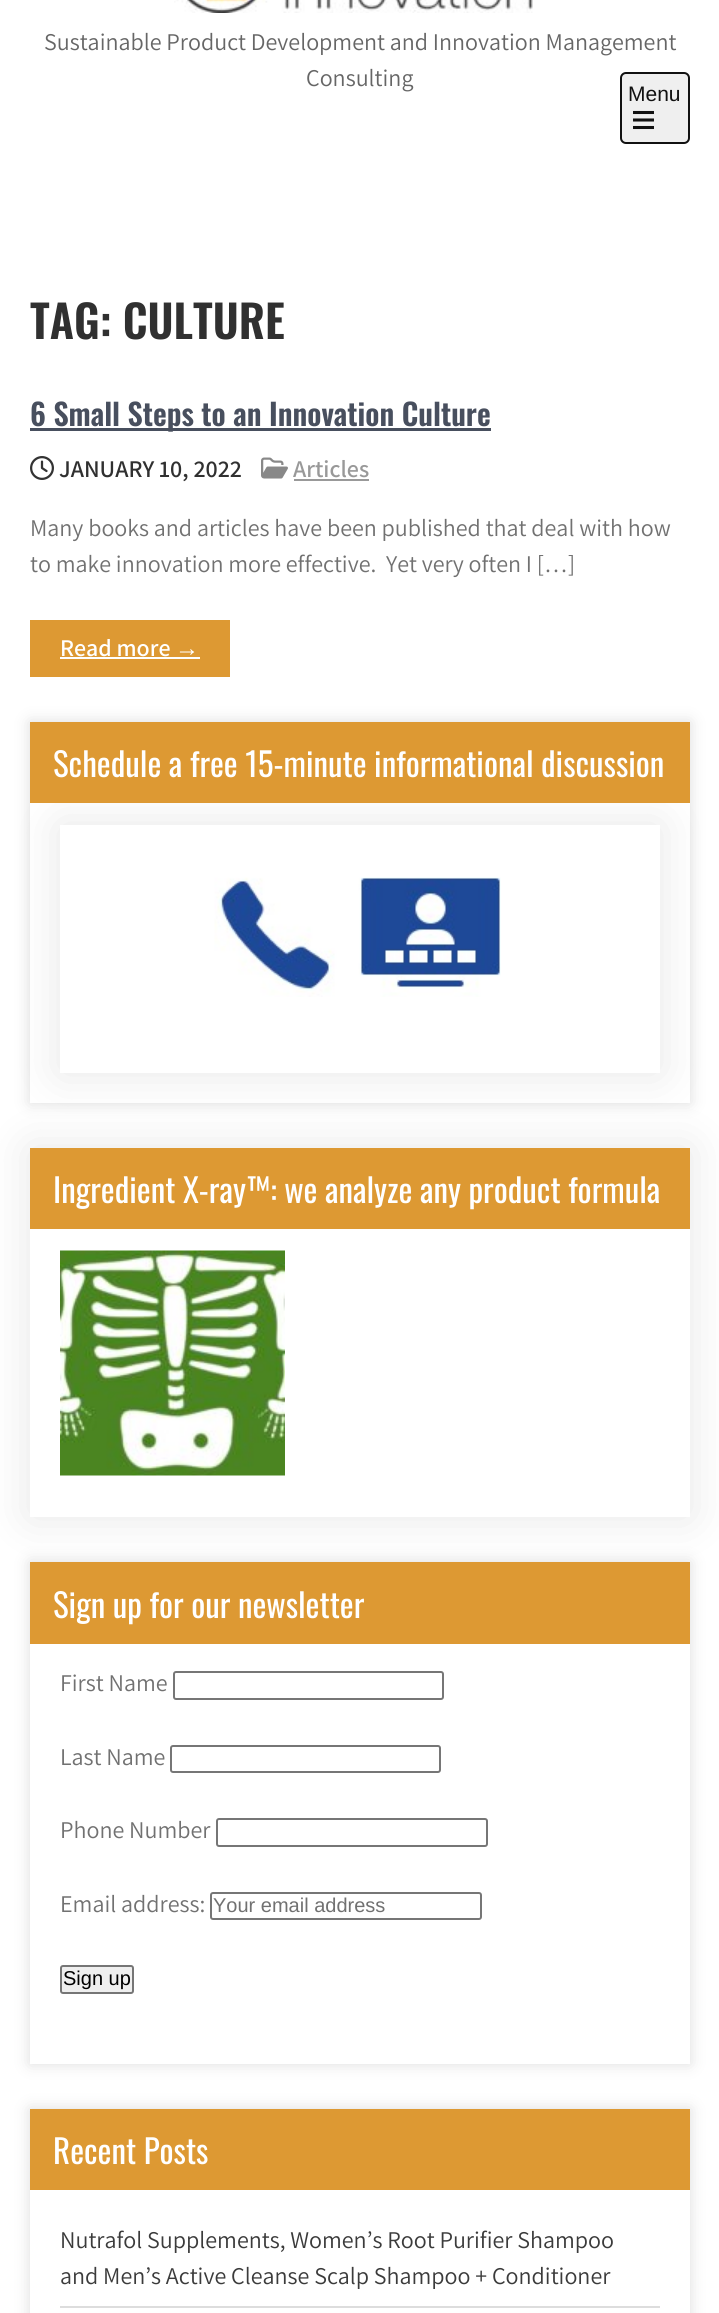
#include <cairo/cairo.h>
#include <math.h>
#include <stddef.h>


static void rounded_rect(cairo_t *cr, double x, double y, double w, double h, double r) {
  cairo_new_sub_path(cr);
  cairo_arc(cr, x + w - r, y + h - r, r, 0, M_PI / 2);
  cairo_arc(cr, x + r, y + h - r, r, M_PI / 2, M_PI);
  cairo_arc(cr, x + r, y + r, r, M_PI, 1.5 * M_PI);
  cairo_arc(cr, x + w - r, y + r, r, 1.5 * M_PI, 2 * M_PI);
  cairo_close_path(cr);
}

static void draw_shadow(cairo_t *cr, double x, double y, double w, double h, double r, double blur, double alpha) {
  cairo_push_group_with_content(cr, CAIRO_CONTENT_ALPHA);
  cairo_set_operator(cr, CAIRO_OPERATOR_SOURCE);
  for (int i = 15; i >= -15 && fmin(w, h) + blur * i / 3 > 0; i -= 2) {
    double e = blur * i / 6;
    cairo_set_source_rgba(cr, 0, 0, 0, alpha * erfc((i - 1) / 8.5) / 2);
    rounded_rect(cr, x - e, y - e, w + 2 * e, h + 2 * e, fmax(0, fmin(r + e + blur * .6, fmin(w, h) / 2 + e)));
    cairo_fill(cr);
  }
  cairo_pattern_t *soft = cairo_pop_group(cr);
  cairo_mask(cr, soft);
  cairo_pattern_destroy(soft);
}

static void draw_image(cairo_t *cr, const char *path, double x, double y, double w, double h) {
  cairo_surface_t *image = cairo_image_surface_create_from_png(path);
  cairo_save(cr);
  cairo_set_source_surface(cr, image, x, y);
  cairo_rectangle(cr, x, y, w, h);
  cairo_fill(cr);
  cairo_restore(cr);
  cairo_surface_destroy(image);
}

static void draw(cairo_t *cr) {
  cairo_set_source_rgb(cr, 1, 1, 1);
  cairo_paint(cr);
  draw_image(cr, "images/1.png", 174, 0, 359, 13);
  cairo_set_source_rgb(cr, 239 / 255.0, 239 / 255.0, 239 / 255.0);
  rounded_rect(cr, 621, 73, 68, 70, 5);
  cairo_fill_preserve(cr);
  cairo_set_source_rgb(cr, 17 / 255.0, 17 / 255.0, 17 / 255.0);
  cairo_stroke(cr);
  draw_image(cr, "images/2.png", 633, 110, 21, 20);
  cairo_set_source_rgb(cr, 72 / 255.0, 79 / 255.0, 94 / 255.0);
  cairo_rectangle(cr, 30, 428, 461, 3);
  cairo_fill(cr);
  draw_image(cr, "images/3.png", 30, 456, 24, 24);
  draw_image(cr, "images/4.png", 261, 457, 27, 22);
  cairo_set_source_rgb(cr, 153 / 255.0, 153 / 255.0, 153 / 255.0);
  cairo_rectangle(cr, 294, 479, 75, 2);
  cairo_fill(cr);
  cairo_set_source_rgb(cr, 221 / 255.0, 153 / 255.0, 51 / 255.0);
  cairo_rectangle(cr, 30, 620, 200, 57);
  cairo_fill(cr);
  cairo_set_source_rgb(cr, 1, 1, 1);
  cairo_rectangle(cr, 60, 657, 140, 2);
  cairo_fill(cr);
  cairo_set_source_rgb(cr, 221 / 255.0, 221 / 255.0, 221 / 255.0);
  draw_shadow(cr, 30, 722, 660, 381, 0, 7.5, 1);
  cairo_set_source_rgb(cr, 1, 1, 1);
  cairo_rectangle(cr, 30, 803, 660, 300);
  cairo_fill(cr);
  cairo_set_source_rgb(cr, 0, 0, 0);
  draw_shadow(cr, 60, 825, 600, 248, 0, 22.5, 0.1);
  cairo_set_source_rgb(cr, 221 / 255.0, 153 / 255.0, 51 / 255.0);
  cairo_rectangle(cr, 30, 722, 660, 81);
  cairo_fill(cr);
  cairo_set_source_rgb(cr, 1, 1, 1);
  cairo_rectangle(cr, 60, 825, 600, 248);
  cairo_fill(cr);
  draw_image(cr, "images/5.png", 214, 877, 287, 120);
  cairo_set_source_rgb(cr, 0, 0, 0);
  draw_shadow(cr, 30, 1148, 660, 369, 0, 22.5, 0.1);
  cairo_set_source_rgb(cr, 1, 1, 1);
  cairo_rectangle(cr, 30, 1229, 660, 288);
  cairo_fill(cr);
  cairo_set_source_rgb(cr, 221 / 255.0, 153 / 255.0, 51 / 255.0);
  cairo_rectangle(cr, 30, 1148, 660, 81);
  cairo_fill(cr);
  draw_image(cr, "images/6.png", 60, 1250, 225, 226);
  cairo_save(cr);
  cairo_set_fill_rule(cr, CAIRO_FILL_RULE_EVEN_ODD);
  cairo_new_path(cr);
  cairo_move_to(cr, 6, 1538);
  cairo_line_to(cr, 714, 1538);
  cairo_line_to(cr, 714, 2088);
  cairo_line_to(cr, 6, 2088);
  cairo_close_path(cr);
  cairo_move_to(cr, 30, 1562);
  cairo_line_to(cr, 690, 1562);
  cairo_line_to(cr, 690, 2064);
  cairo_line_to(cr, 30, 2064);
  cairo_close_path(cr);
  cairo_clip(cr);
  cairo_set_source_rgb(cr, 221 / 255.0, 221 / 255.0, 221 / 255.0);
  draw_shadow(cr, 30, 1562, 660, 502, 0, 7.5, 1);
  cairo_restore(cr);
  cairo_rectangle(cr, 30, 1562, 660, 82);
  cairo_fill(cr);
  rounded_rect(cr, 174, 1672, 269, 27, 2);
  cairo_set_source_rgb(cr, 118 / 255.0, 118 / 255.0, 118 / 255.0);
  cairo_stroke(cr);
  rounded_rect(cr, 171, 1746, 269, 26, 2);
  cairo_stroke(cr);
  rounded_rect(cr, 217, 1819, 270, 27, 2);
  cairo_stroke(cr);
  rounded_rect(cr, 211, 1893, 270, 26, 2);
  cairo_stroke(cr);
  cairo_set_source_rgb(cr, 239 / 255.0, 239 / 255.0, 239 / 255.0);
  rounded_rect(cr, 61, 1966, 72, 27, 2);
  cairo_fill_preserve(cr);
  cairo_set_source_rgb(cr, 118 / 255.0, 118 / 255.0, 118 / 255.0);
  cairo_stroke(cr);
  cairo_save(cr);
  cairo_set_fill_rule(cr, CAIRO_FILL_RULE_EVEN_ODD);
  cairo_new_path(cr);
  cairo_move_to(cr, 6, 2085);
  cairo_line_to(cr, 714, 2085);
  cairo_line_to(cr, 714, 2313);
  cairo_line_to(cr, 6, 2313);
  cairo_close_path(cr);
  cairo_move_to(cr, 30, 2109);
  cairo_line_to(cr, 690, 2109);
  cairo_line_to(cr, 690, 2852);
  cairo_line_to(cr, 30, 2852);
  cairo_close_path(cr);
  cairo_clip(cr);
  cairo_set_source_rgb(cr, 221 / 255.0, 221 / 255.0, 221 / 255.0);
  draw_shadow(cr, 30, 2109, 660, 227, 0, 7.5, 1);
  cairo_restore(cr);
  cairo_set_source_rgb(cr, 221 / 255.0, 153 / 255.0, 51 / 255.0);
  cairo_rectangle(cr, 30, 2109, 660, 81);
  cairo_fill(cr);
  cairo_set_source_rgb(cr, 221 / 255.0, 221 / 255.0, 221 / 255.0);
  cairo_rectangle(cr, 60, 2306, 600, 2);
  cairo_fill(cr);
  cairo_select_font_face(cr, "Assistant", CAIRO_FONT_SLANT_NORMAL, CAIRO_FONT_WEIGHT_NORMAL);
  cairo_set_font_size(cr, 24);
  cairo_set_source_rgb(cr, 102 / 255.0, 102 / 255.0, 102 / 255.0);
  cairo_move_to(cr, 44, 50);
  cairo_show_text(cr, "Sustainable Product Development and Innovation Management");
  cairo_move_to(cr, 306, 86);
  cairo_show_text(cr, "Consulting");
  cairo_select_font_face(cr, "Liberation Sans", CAIRO_FONT_SLANT_NORMAL, CAIRO_FONT_WEIGHT_NORMAL);
  cairo_set_font_size(cr, 21);
  cairo_set_source_rgb(cr, 17 / 255.0, 17 / 255.0, 17 / 255.0);
  cairo_move_to(cr, 628, 101);
  cairo_show_text(cr, "Menu");
  cairo_select_font_face(cr, "Oswald SemiBold", CAIRO_FONT_SLANT_NORMAL, CAIRO_FONT_WEIGHT_NORMAL);
  cairo_set_font_size(cr, 45);
  cairo_set_source_rgb(cr, 48 / 255.0, 48 / 255.0, 48 / 255.0);
  cairo_move_to(cr, 30, 339);
  cairo_show_text(cr, "TAG: CULTURE");
  cairo_set_font_size(cr, 30);
  cairo_set_source_rgb(cr, 72 / 255.0, 79 / 255.0, 94 / 255.0);
  cairo_move_to(cr, 30, 426);
  cairo_show_text(cr, "6 Small Steps to an Innovation Culture");
  cairo_select_font_face(cr, "Assistant SemiBold", CAIRO_FONT_SLANT_NORMAL, CAIRO_FONT_WEIGHT_NORMAL);
  cairo_set_font_size(cr, 24);
  cairo_set_source_rgb(cr, 48 / 255.0, 48 / 255.0, 48 / 255.0);
  cairo_move_to(cr, 59, 477);
  cairo_show_text(cr, "JANUARY 10, 2022");
  cairo_set_source_rgb(cr, 153 / 255.0, 153 / 255.0, 153 / 255.0);
  cairo_move_to(cr, 293, 477);
  cairo_show_text(cr, "Articles");
  cairo_select_font_face(cr, "Assistant", CAIRO_FONT_SLANT_NORMAL, CAIRO_FONT_WEIGHT_NORMAL);
  cairo_set_source_rgb(cr, 113 / 255.0, 113 / 255.0, 113 / 255.0);
  cairo_move_to(cr, 30, 536);
  cairo_show_text(cr, "Many books and articles have been published that deal with how");
  cairo_move_to(cr, 30, 572);
  cairo_show_text(cr, "to make innovation more effective.  Yet very often I […]");
  cairo_select_font_face(cr, "Assistant SemiBold", CAIRO_FONT_SLANT_NORMAL, CAIRO_FONT_WEIGHT_NORMAL);
  cairo_set_source_rgb(cr, 1, 1, 1);
  cairo_move_to(cr, 60, 656);
  cairo_show_text(cr, "Read more");
  cairo_select_font_face(cr, "Liberation Sans", CAIRO_FONT_SLANT_NORMAL, CAIRO_FONT_WEIGHT_BOLD);
  cairo_move_to(cr, 175, 656);
  cairo_show_text(cr, "→");
  cairo_select_font_face(cr, "Oswald", CAIRO_FONT_SLANT_NORMAL, CAIRO_FONT_WEIGHT_NORMAL);
  cairo_set_font_size(cr, 33);
  cairo_move_to(cr, 53, 777);
  cairo_show_text(cr, "Schedule a free 15-minute informational discussion");
  cairo_move_to(cr, 53, 1203);
  cairo_show_text(cr, "Ingredient X-ray™: we analyze any product formula");
  cairo_move_to(cr, 53, 1618);
  cairo_show_text(cr, "Sign up for our newsletter");
  cairo_select_font_face(cr, "Assistant", CAIRO_FONT_SLANT_NORMAL, CAIRO_FONT_WEIGHT_NORMAL);
  cairo_set_font_size(cr, 24);
  cairo_set_source_rgb(cr, 113 / 255.0, 113 / 255.0, 113 / 255.0);
  cairo_move_to(cr, 60, 1691);
  cairo_show_text(cr, "First Name");
  cairo_move_to(cr, 60, 1765);
  cairo_show_text(cr, "Last Name");
  cairo_move_to(cr, 60, 1838);
  cairo_show_text(cr, "Phone Number");
  cairo_move_to(cr, 60, 1912);
  cairo_show_text(cr, "Email address:");
  cairo_select_font_face(cr, "Liberation Sans", CAIRO_FONT_SLANT_NORMAL, CAIRO_FONT_WEIGHT_NORMAL);
  cairo_set_font_size(cr, 20);
  cairo_move_to(cr, 213, 1912);
  cairo_show_text(cr, "Your email address");
  cairo_set_source_rgb(cr, 0, 0, 0);
  cairo_move_to(cr, 63, 1985);
  cairo_show_text(cr, "Sign up");
  cairo_select_font_face(cr, "Oswald", CAIRO_FONT_SLANT_NORMAL, CAIRO_FONT_WEIGHT_NORMAL);
  cairo_set_font_size(cr, 33);
  cairo_set_source_rgb(cr, 1, 1, 1);
  cairo_move_to(cr, 53, 2164);
  cairo_show_text(cr, "Recent Posts");
  cairo_select_font_face(cr, "Assistant", CAIRO_FONT_SLANT_NORMAL, CAIRO_FONT_WEIGHT_NORMAL);
  cairo_set_font_size(cr, 24);
  cairo_set_source_rgb(cr, 59 / 255.0, 59 / 255.0, 59 / 255.0);
  cairo_move_to(cr, 60, 2248);
  cairo_show_text(cr, "Nutrafol Supplements, Women’s Root Purifier Shampoo");
  cairo_move_to(cr, 60, 2284);
  cairo_show_text(cr, "and Men’s Active Cleanse Scalp Shampoo + Conditioner");
}

int main(void) {
  cairo_surface_t *surface = cairo_image_surface_create(CAIRO_FORMAT_RGB24, 719, 2313);
  cairo_t *cr = cairo_create(surface);
  cairo_font_options_t *options = cairo_font_options_create();
  cairo_font_options_set_hint_metrics(options, CAIRO_HINT_METRICS_OFF);
  cairo_font_options_set_hint_style(options, CAIRO_HINT_STYLE_NONE);
  cairo_set_font_options(cr, options);
  cairo_set_miter_limit(cr, 4);
  draw(cr);
  cairo_surface_write_to_png(surface, "out.png");
  cairo_font_options_destroy(options);
  cairo_destroy(cr);
  cairo_surface_destroy(surface);
  return 0;
}
